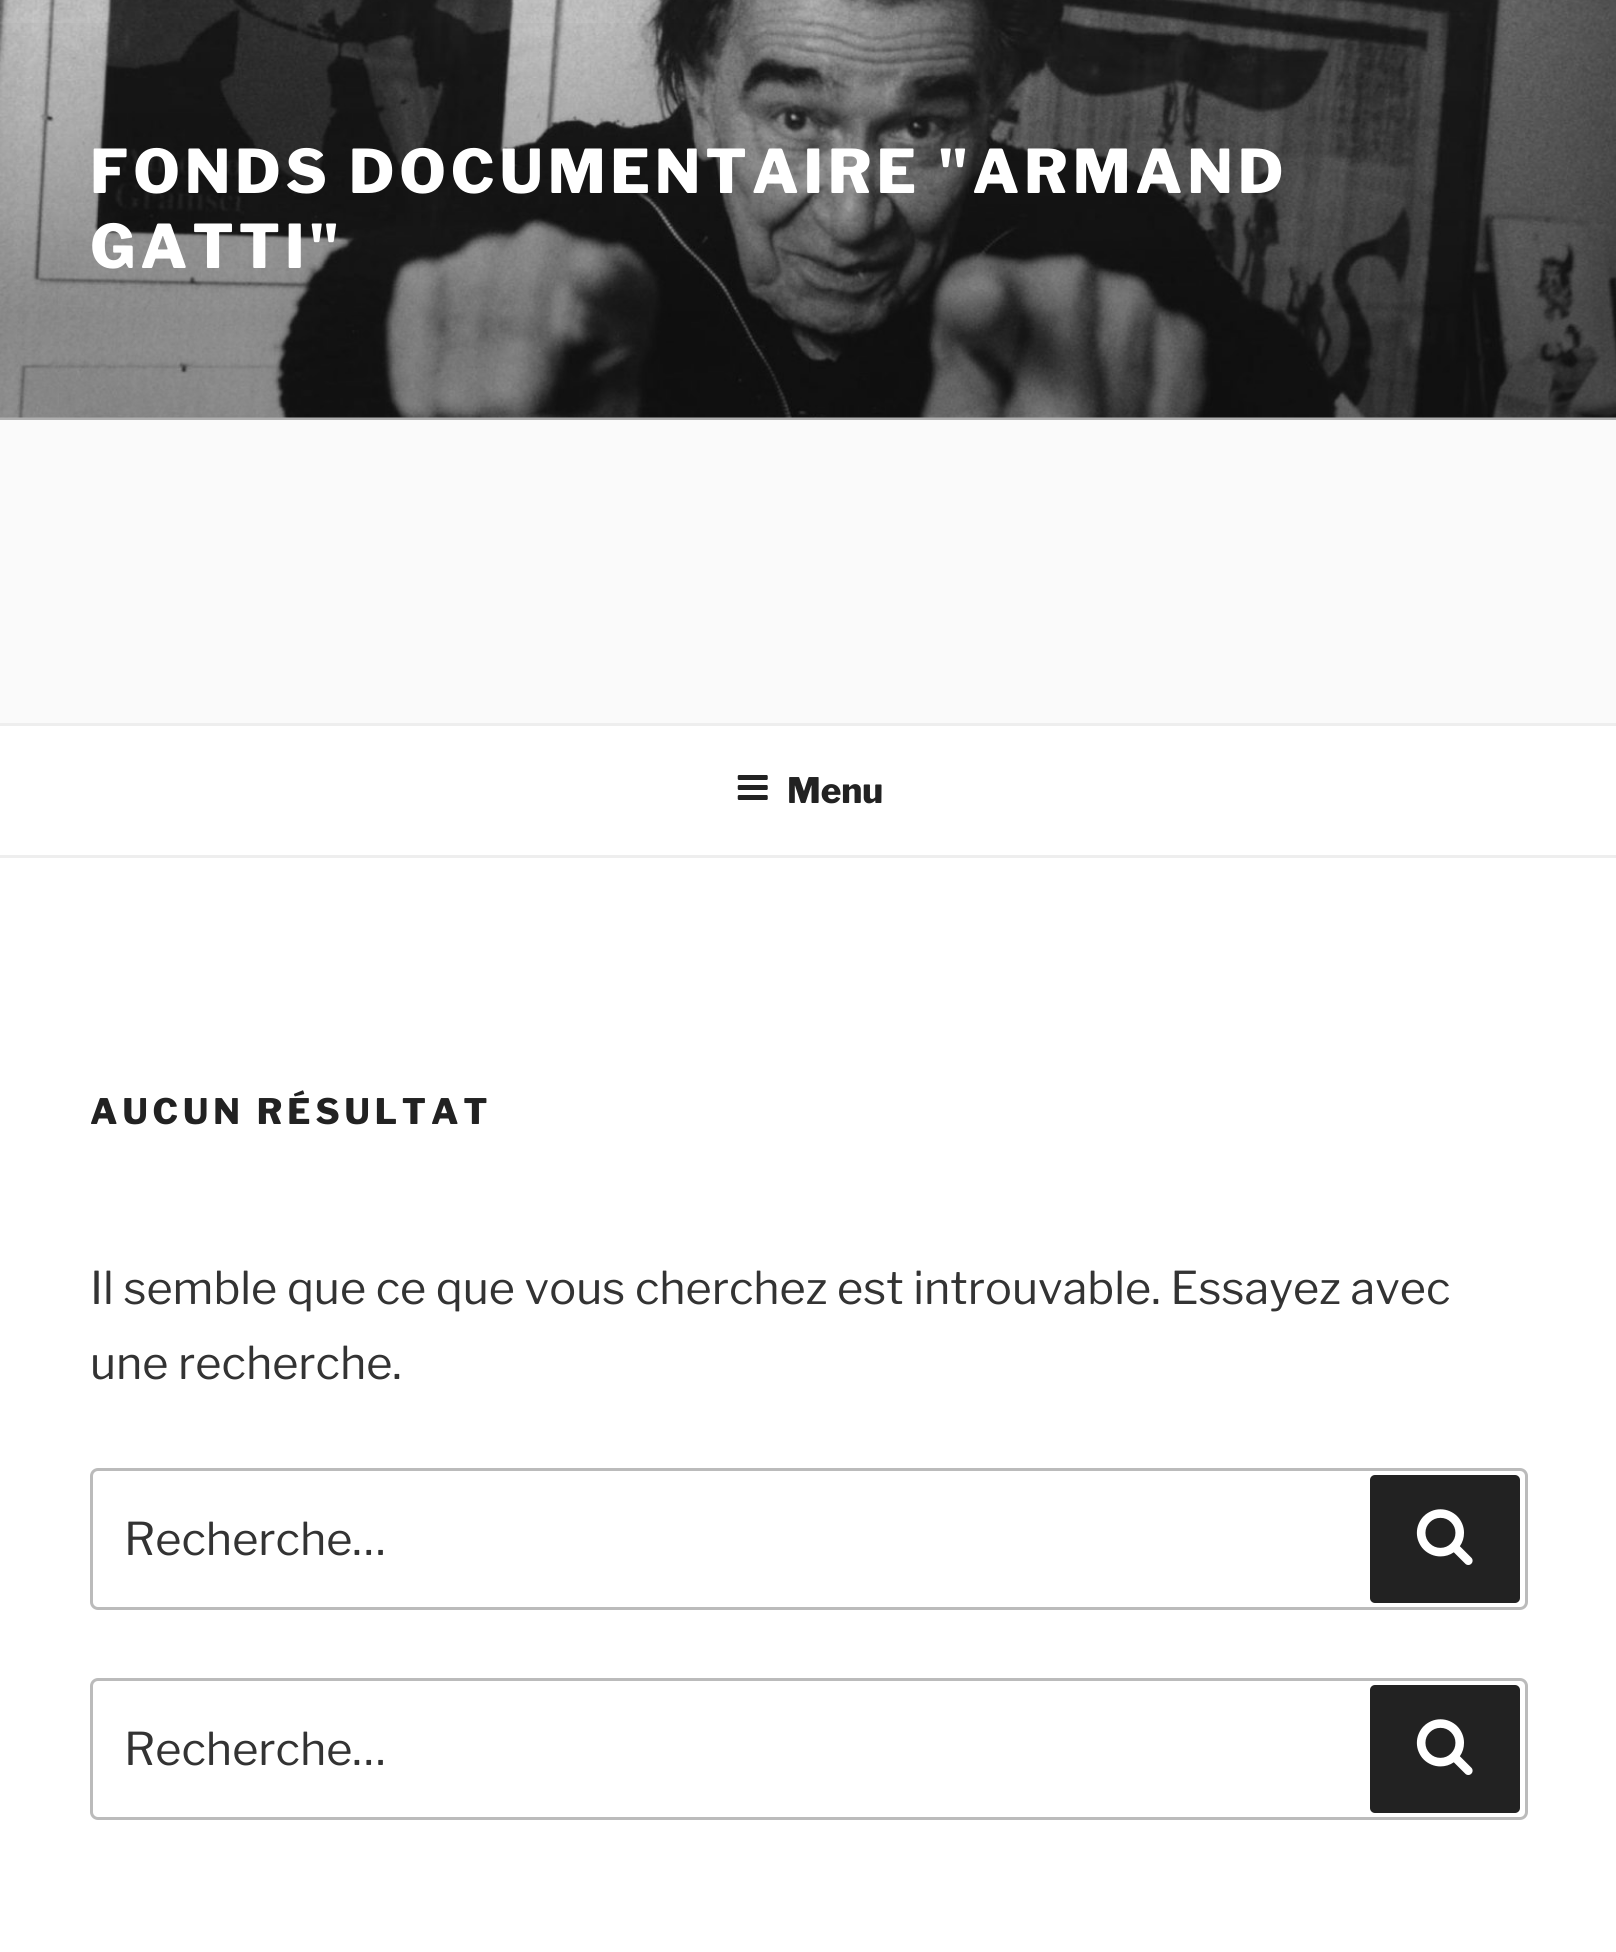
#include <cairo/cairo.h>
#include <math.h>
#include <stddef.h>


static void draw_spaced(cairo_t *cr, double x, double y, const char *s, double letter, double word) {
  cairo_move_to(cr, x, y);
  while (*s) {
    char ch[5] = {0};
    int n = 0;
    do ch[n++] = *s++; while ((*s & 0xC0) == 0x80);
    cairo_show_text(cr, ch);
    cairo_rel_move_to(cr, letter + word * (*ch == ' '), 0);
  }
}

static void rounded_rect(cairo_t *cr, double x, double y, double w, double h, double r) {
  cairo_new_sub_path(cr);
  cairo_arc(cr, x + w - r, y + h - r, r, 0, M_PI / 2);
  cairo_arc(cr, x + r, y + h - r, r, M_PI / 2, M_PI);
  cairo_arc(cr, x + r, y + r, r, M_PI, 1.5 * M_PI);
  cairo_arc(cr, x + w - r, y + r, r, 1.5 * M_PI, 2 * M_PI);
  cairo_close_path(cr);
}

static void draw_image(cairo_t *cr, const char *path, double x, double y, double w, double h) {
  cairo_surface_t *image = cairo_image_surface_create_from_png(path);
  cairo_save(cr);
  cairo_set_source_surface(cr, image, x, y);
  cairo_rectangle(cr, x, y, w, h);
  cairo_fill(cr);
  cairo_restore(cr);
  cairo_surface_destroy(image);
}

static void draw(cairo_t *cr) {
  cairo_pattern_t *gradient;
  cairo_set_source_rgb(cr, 1, 1, 1);
  cairo_paint(cr);
  cairo_set_source_rgb(cr, 250 / 255.0, 250 / 255.0, 250 / 255.0);
  cairo_rectangle(cr, 0, 417, 1616, 306);
  cairo_fill(cr);
  draw_image(cr, "images/1.png", 0, 0, 1616, 418);
  gradient = cairo_pattern_create_linear(809, 0, 809, 420);
  cairo_pattern_add_color_stop_rgba(gradient, 0, 0, 0, 0, 0);
  cairo_pattern_add_color_stop_rgba(gradient, 0.75, 0, 0, 0, 0.3);
  cairo_pattern_add_color_stop_rgba(gradient, 1, 0, 0, 0, 0.3);
  cairo_set_source(cr, gradient);
  cairo_pattern_destroy(gradient);
  cairo_rectangle(cr, 0, 23, 1616, 397);
  cairo_fill(cr);
  cairo_set_source_rgb(cr, 238 / 255.0, 238 / 255.0, 238 / 255.0);
  cairo_rectangle(cr, 0, 723, 1616, 3);
  cairo_fill(cr);
  cairo_rectangle(cr, 0, 855, 1616, 3);
  cairo_fill(cr);
  draw_image(cr, "images/2.png", 737, 775, 31, 25);
  rounded_rect(cr, 91.5, 1469.5, 1435, 139, 6.5);
  cairo_set_source_rgb(cr, 187 / 255.0, 187 / 255.0, 187 / 255.0);
  cairo_set_line_width(cr, 3);
  cairo_stroke(cr);
  cairo_set_source_rgb(cr, 34 / 255.0, 34 / 255.0, 34 / 255.0);
  rounded_rect(cr, 1370, 1475, 150, 128, 5);
  cairo_fill(cr);
  draw_image(cr, "images/3.png", 1416, 1509, 57, 56);
  rounded_rect(cr, 91.5, 1679.5, 1435, 139, 6.5);
  cairo_set_source_rgb(cr, 187 / 255.0, 187 / 255.0, 187 / 255.0);
  cairo_stroke(cr);
  cairo_set_source_rgb(cr, 34 / 255.0, 34 / 255.0, 34 / 255.0);
  rounded_rect(cr, 1370, 1685, 150, 128, 5);
  cairo_fill(cr);
  draw_image(cr, "images/3.png", 1416, 1719, 57, 56);
  cairo_select_font_face(cr, "Libre Franklin Thin", CAIRO_FONT_SLANT_NORMAL, CAIRO_FONT_WEIGHT_NORMAL);
  cairo_set_font_size(cr, 60);
  cairo_set_source_rgb(cr, 1, 1, 1);
  draw_spaced(cr, 90, 193, "FONDS DOCUMENTAIRE \"ARMAND", 4.8, 0);
  draw_spaced(cr, 90, 268, "GATTI\"", 4.8, 0);
  cairo_set_font_size(cr, 35);
  cairo_set_source_rgb(cr, 34 / 255.0, 34 / 255.0, 34 / 255.0);
  cairo_move_to(cr, 787, 803);
  cairo_show_text(cr, "Menu");
  draw_spaced(cr, 90, 1124, "AUCUN RÉSULTAT", 4.9, 0);
  cairo_select_font_face(cr, "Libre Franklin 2 Thin", CAIRO_FONT_SLANT_NORMAL, CAIRO_FONT_WEIGHT_NORMAL);
  cairo_set_font_size(cr, 45);
  cairo_set_source_rgb(cr, 51 / 255.0, 51 / 255.0, 51 / 255.0);
  cairo_move_to(cr, 90, 1304);
  cairo_show_text(cr, "Il semble que ce que vous cherchez est introuvable. Essayez avec");
  cairo_move_to(cr, 90, 1379);
  cairo_show_text(cr, "une recherche.");
  cairo_move_to(cr, 124, 1555);
  cairo_show_text(cr, "Recherche…");
  cairo_move_to(cr, 124, 1765);
  cairo_show_text(cr, "Recherche…");
}

int main(void) {
  cairo_surface_t *surface = cairo_image_surface_create(CAIRO_FORMAT_RGB24, 1616, 1952);
  cairo_t *cr = cairo_create(surface);
  cairo_font_options_t *options = cairo_font_options_create();
  cairo_font_options_set_hint_metrics(options, CAIRO_HINT_METRICS_OFF);
  cairo_font_options_set_hint_style(options, CAIRO_HINT_STYLE_NONE);
  cairo_set_font_options(cr, options);
  cairo_set_miter_limit(cr, 4);
  draw(cr);
  cairo_surface_write_to_png(surface, "out.png");
  cairo_font_options_destroy(options);
  cairo_destroy(cr);
  cairo_surface_destroy(surface);
  return 0;
}
